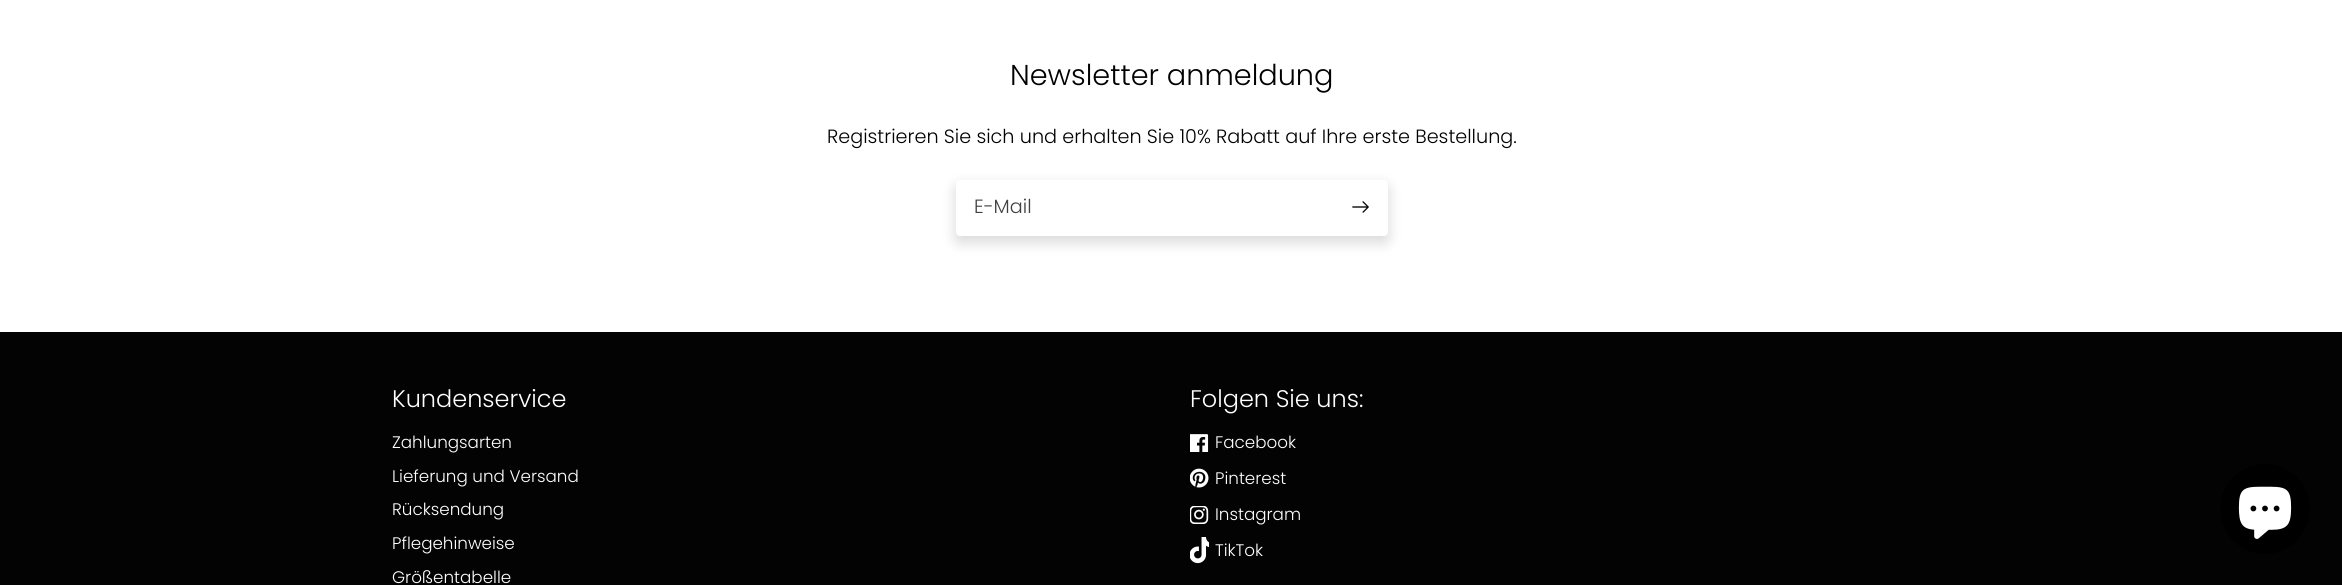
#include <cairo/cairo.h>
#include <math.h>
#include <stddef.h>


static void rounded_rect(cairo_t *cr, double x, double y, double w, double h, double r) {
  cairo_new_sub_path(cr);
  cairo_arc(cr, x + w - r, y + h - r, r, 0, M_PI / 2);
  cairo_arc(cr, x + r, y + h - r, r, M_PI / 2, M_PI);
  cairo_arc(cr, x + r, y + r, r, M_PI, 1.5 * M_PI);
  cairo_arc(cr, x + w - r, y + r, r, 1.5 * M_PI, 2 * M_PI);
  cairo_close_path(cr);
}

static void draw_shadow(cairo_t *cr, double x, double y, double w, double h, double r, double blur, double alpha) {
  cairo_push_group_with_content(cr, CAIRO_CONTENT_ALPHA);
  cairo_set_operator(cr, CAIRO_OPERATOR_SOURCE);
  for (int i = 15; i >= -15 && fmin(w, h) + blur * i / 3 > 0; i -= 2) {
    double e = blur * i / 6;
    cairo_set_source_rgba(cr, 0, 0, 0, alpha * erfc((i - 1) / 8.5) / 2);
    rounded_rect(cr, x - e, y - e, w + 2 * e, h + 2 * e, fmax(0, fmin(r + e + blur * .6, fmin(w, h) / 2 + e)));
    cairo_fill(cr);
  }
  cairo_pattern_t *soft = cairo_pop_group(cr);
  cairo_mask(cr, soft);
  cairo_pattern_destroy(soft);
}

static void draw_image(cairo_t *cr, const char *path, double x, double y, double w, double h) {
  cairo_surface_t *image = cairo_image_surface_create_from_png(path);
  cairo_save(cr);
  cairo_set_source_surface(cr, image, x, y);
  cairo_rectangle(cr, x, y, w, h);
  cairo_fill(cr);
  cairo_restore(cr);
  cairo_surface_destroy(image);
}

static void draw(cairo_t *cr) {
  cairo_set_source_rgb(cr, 1, 1, 1);
  cairo_paint(cr);
  cairo_set_source_rgb(cr, 0, 0, 0);
  draw_shadow(cr, 956, 186, 432, 56, 4, 7.5, 0.16);
  cairo_set_source_rgb(cr, 1, 1, 1);
  rounded_rect(cr, 956, 180, 432, 56, 4);
  cairo_fill(cr);
  draw_image(cr, "images/1.png", 1352, 201, 17, 12);
  cairo_set_source_rgb(cr, 3 / 255.0, 3 / 255.0, 3 / 255.0);
  cairo_rectangle(cr, 0, 332, 2342, 253);
  cairo_fill(cr);
  draw_image(cr, "images/2.png", 1190, 434, 19, 18);
  draw_image(cr, "images/3.png", 1190, 468, 19, 20);
  draw_image(cr, "images/4.png", 1190, 506, 19, 18);
  draw_image(cr, "images/5.png", 1190, 537, 19, 27);
  cairo_set_source_rgb(cr, 0, 0, 0);
  cairo_arc(cr, 2265, 509, 45, 0, 2 * M_PI);
  cairo_fill(cr);
  draw_image(cr, "images/6.png", 2238, 486, 54, 53);
  cairo_select_font_face(cr, "Poppins Light", CAIRO_FONT_SLANT_NORMAL, CAIRO_FONT_WEIGHT_NORMAL);
  cairo_set_font_size(cr, 28.75);
  cairo_move_to(cr, 1010, 85);
  cairo_show_text(cr, "Newsletter anmeldung");
  cairo_set_font_size(cr, 19.2);
  cairo_move_to(cr, 827, 143);
  cairo_show_text(cr, "Registrieren Sie sich und erhalten Sie 10% Rabatt auf Ihre erste Bestellung.");
  cairo_set_source_rgb(cr, 64 / 255.0, 64 / 255.0, 64 / 255.0);
  cairo_move_to(cr, 974, 213);
  cairo_show_text(cr, "E-Mail");
  cairo_set_font_size(cr, 24);
  cairo_set_source_rgb(cr, 1, 1, 1);
  cairo_move_to(cr, 392, 407);
  cairo_show_text(cr, "Kundenservice");
  cairo_set_font_size(cr, 16.75);
  cairo_move_to(cr, 392, 448);
  cairo_show_text(cr, "Zahlungsarten");
  cairo_move_to(cr, 392, 482);
  cairo_show_text(cr, "Lieferung und Versand");
  cairo_move_to(cr, 392, 515);
  cairo_show_text(cr, "Rücksendung");
  cairo_move_to(cr, 392, 549);
  cairo_show_text(cr, "Pflegehinweise");
  cairo_move_to(cr, 392, 583);
  cairo_show_text(cr, "Größentabelle");
  cairo_set_font_size(cr, 24);
  cairo_move_to(cr, 1190, 407);
  cairo_show_text(cr, "Folgen Sie uns:");
  cairo_set_font_size(cr, 16.75);
  cairo_move_to(cr, 1215, 448);
  cairo_show_text(cr, "Facebook");
  cairo_move_to(cr, 1215, 484);
  cairo_show_text(cr, "Pinterest");
  cairo_move_to(cr, 1215, 520);
  cairo_show_text(cr, "Instagram");
  cairo_move_to(cr, 1215, 556);
  cairo_show_text(cr, "TikTok");
}

int main(void) {
  cairo_surface_t *surface = cairo_image_surface_create(CAIRO_FORMAT_RGB24, 2342, 585);
  cairo_t *cr = cairo_create(surface);
  cairo_font_options_t *options = cairo_font_options_create();
  cairo_font_options_set_hint_metrics(options, CAIRO_HINT_METRICS_OFF);
  cairo_font_options_set_hint_style(options, CAIRO_HINT_STYLE_NONE);
  cairo_set_font_options(cr, options);
  cairo_set_miter_limit(cr, 4);
  draw(cr);
  cairo_surface_write_to_png(surface, "out.png");
  cairo_font_options_destroy(options);
  cairo_destroy(cr);
  cairo_surface_destroy(surface);
  return 0;
}
